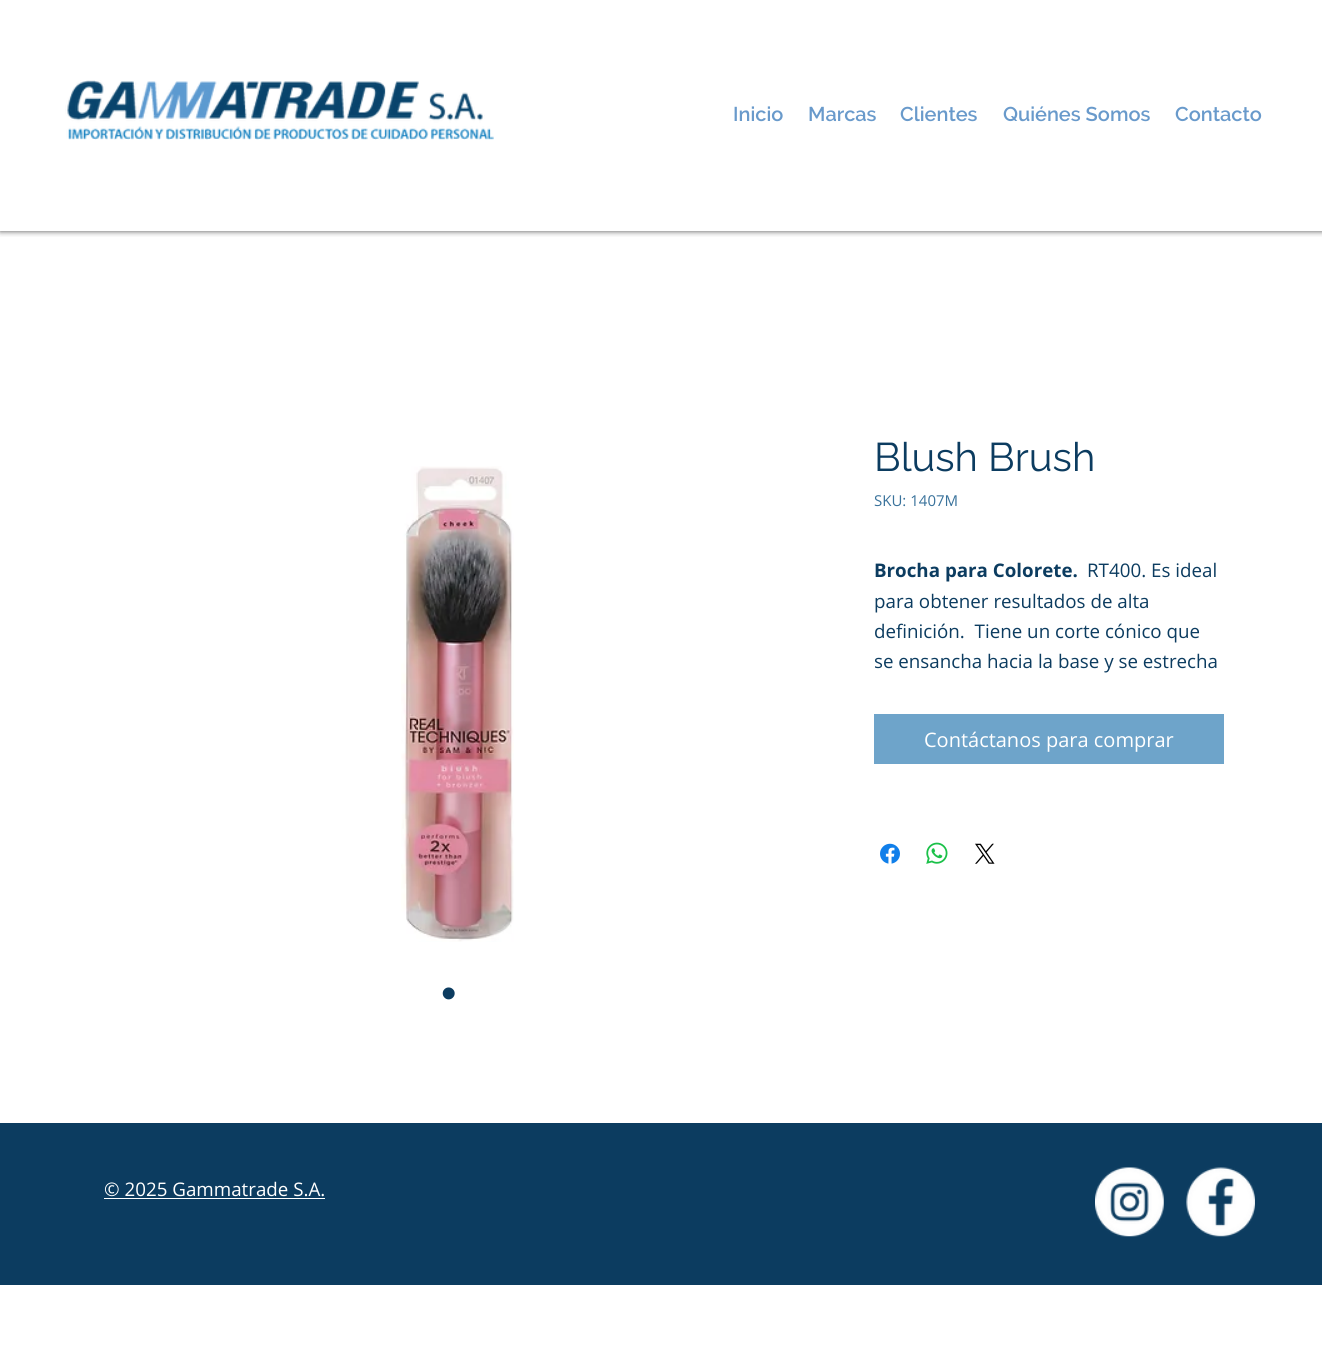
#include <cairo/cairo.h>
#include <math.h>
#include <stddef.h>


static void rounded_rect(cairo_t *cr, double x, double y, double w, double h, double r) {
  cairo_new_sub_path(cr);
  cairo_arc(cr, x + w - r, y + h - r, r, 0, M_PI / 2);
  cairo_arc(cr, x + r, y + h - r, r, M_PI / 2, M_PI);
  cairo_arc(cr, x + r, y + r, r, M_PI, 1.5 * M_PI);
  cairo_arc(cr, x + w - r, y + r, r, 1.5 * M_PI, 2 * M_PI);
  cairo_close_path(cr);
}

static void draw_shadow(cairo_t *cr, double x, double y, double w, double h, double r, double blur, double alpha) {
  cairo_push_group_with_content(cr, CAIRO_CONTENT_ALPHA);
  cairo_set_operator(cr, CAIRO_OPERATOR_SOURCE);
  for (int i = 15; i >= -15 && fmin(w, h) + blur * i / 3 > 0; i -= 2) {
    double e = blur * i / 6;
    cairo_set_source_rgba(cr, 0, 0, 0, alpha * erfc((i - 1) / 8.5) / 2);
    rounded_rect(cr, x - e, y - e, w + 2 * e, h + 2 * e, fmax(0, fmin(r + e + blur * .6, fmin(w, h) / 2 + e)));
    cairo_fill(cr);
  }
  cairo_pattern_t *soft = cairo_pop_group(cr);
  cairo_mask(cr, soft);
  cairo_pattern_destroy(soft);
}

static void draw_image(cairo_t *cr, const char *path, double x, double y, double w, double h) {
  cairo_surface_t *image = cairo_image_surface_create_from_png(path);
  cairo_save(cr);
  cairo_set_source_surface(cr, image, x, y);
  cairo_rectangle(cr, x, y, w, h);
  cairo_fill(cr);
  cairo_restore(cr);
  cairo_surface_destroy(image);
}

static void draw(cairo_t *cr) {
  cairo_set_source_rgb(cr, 1, 1, 1);
  cairo_paint(cr);
  cairo_save(cr);
  cairo_rectangle(cr, 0, 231, 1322, 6);
  cairo_clip(cr);
  cairo_set_source_rgb(cr, 0, 0, 0);
  draw_shadow(cr, 0, 0, 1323, 231, 0, 3, 0.7);
  cairo_restore(cr);
  draw_image(cr, "images/1.png", 65, 80, 429, 60);
  cairo_set_source_rgb(cr, 110 / 255.0, 164 / 255.0, 202 / 255.0);
  cairo_rectangle(cr, 874, 714, 350, 50);
  cairo_fill(cr);
  draw_image(cr, "images/2.png", 880, 843, 20, 21);
  draw_image(cr, "images/3.png", 926, 842, 22, 22);
  draw_image(cr, "images/4.png", 975, 843, 20, 21);
  draw_image(cr, "images/5.png", 401, 466, 113, 476);
  cairo_set_source_rgb(cr, 12 / 255.0, 60 / 255.0, 96 / 255.0);
  cairo_rectangle(cr, 0, 1123, 1322, 162);
  cairo_fill(cr);
  cairo_set_source_rgb(cr, 1, 1, 1);
  cairo_rectangle(cr, 104, 1198, 221, 1);
  cairo_fill(cr);
  draw_image(cr, "images/6.png", 1095, 1167, 69, 70);
  draw_image(cr, "images/7.png", 1186, 1167, 69, 70);
  cairo_select_font_face(cr, "Raleway SemiBold", CAIRO_FONT_SLANT_NORMAL, CAIRO_FONT_WEIGHT_NORMAL);
  cairo_set_font_size(cr, 20);
  cairo_set_source_rgb(cr, 105 / 255.0, 154 / 255.0, 203 / 255.0);
  cairo_move_to(cr, 733, 121);
  cairo_show_text(cr, "Inicio");
  cairo_move_to(cr, 808, 121);
  cairo_show_text(cr, "Marcas");
  cairo_move_to(cr, 900, 121);
  cairo_show_text(cr, "Clientes");
  cairo_move_to(cr, 1003, 121);
  cairo_show_text(cr, "Quiénes Somos");
  cairo_move_to(cr, 1175, 121);
  cairo_show_text(cr, "Contacto");
  cairo_select_font_face(cr, "Raleway", CAIRO_FONT_SLANT_NORMAL, CAIRO_FONT_WEIGHT_NORMAL);
  cairo_set_font_size(cr, 40);
  cairo_set_source_rgb(cr, 12 / 255.0, 60 / 255.0, 96 / 255.0);
  cairo_move_to(cr, 874, 471);
  cairo_show_text(cr, "Blush Brush");
  cairo_select_font_face(cr, "Open Sans", CAIRO_FONT_SLANT_NORMAL, CAIRO_FONT_WEIGHT_NORMAL);
  cairo_set_font_size(cr, 15);
  cairo_set_source_rgb(cr, 57 / 255.0, 114 / 255.0, 155 / 255.0);
  cairo_move_to(cr, 874, 506);
  cairo_show_text(cr, "SKU: 1407M");
  cairo_select_font_face(cr, "Open Sans", CAIRO_FONT_SLANT_NORMAL, CAIRO_FONT_WEIGHT_BOLD);
  cairo_set_font_size(cr, 18.75);
  cairo_set_source_rgb(cr, 12 / 255.0, 60 / 255.0, 96 / 255.0);
  cairo_move_to(cr, 874, 577);
  cairo_show_text(cr, "Brocha para Colorete.");
  cairo_select_font_face(cr, "Open Sans", CAIRO_FONT_SLANT_NORMAL, CAIRO_FONT_WEIGHT_NORMAL);
  cairo_move_to(cr, 1087, 577);
  cairo_show_text(cr, "RT400. Es ideal");
  cairo_move_to(cr, 874, 608);
  cairo_show_text(cr, "para obtener resultados de alta");
  cairo_move_to(cr, 874, 638);
  cairo_show_text(cr, "definición.  Tiene un corte cónico que");
  cairo_move_to(cr, 874, 668);
  cairo_show_text(cr, "se ensancha hacia la base y se estrecha");
  cairo_set_font_size(cr, 20);
  cairo_set_source_rgb(cr, 1, 1, 1);
  cairo_move_to(cr, 924, 747);
  cairo_show_text(cr, "Contáctanos para comprar");
  cairo_select_font_face(cr, "Liberation Sans", CAIRO_FONT_SLANT_NORMAL, CAIRO_FONT_WEIGHT_NORMAL);
  cairo_set_font_size(cr, 44);
  cairo_set_source_rgb(cr, 12 / 255.0, 60 / 255.0, 96 / 255.0);
  cairo_move_to(cr, 441, 1008);
  cairo_show_text(cr, "•");
  cairo_select_font_face(cr, "Open Sans", CAIRO_FONT_SLANT_NORMAL, CAIRO_FONT_WEIGHT_NORMAL);
  cairo_set_font_size(cr, 18.75);
  cairo_set_source_rgb(cr, 1, 1, 1);
  cairo_move_to(cr, 104, 1196);
  cairo_show_text(cr, "© 2025 Gammatrade S.A.");
}

int main(void) {
  cairo_surface_t *surface = cairo_image_surface_create(CAIRO_FORMAT_RGB24, 1322, 1363);
  cairo_t *cr = cairo_create(surface);
  cairo_font_options_t *options = cairo_font_options_create();
  cairo_font_options_set_hint_metrics(options, CAIRO_HINT_METRICS_OFF);
  cairo_font_options_set_hint_style(options, CAIRO_HINT_STYLE_NONE);
  cairo_set_font_options(cr, options);
  cairo_set_miter_limit(cr, 4);
  draw(cr);
  cairo_surface_write_to_png(surface, "out.png");
  cairo_font_options_destroy(options);
  cairo_destroy(cr);
  cairo_surface_destroy(surface);
  return 0;
}
